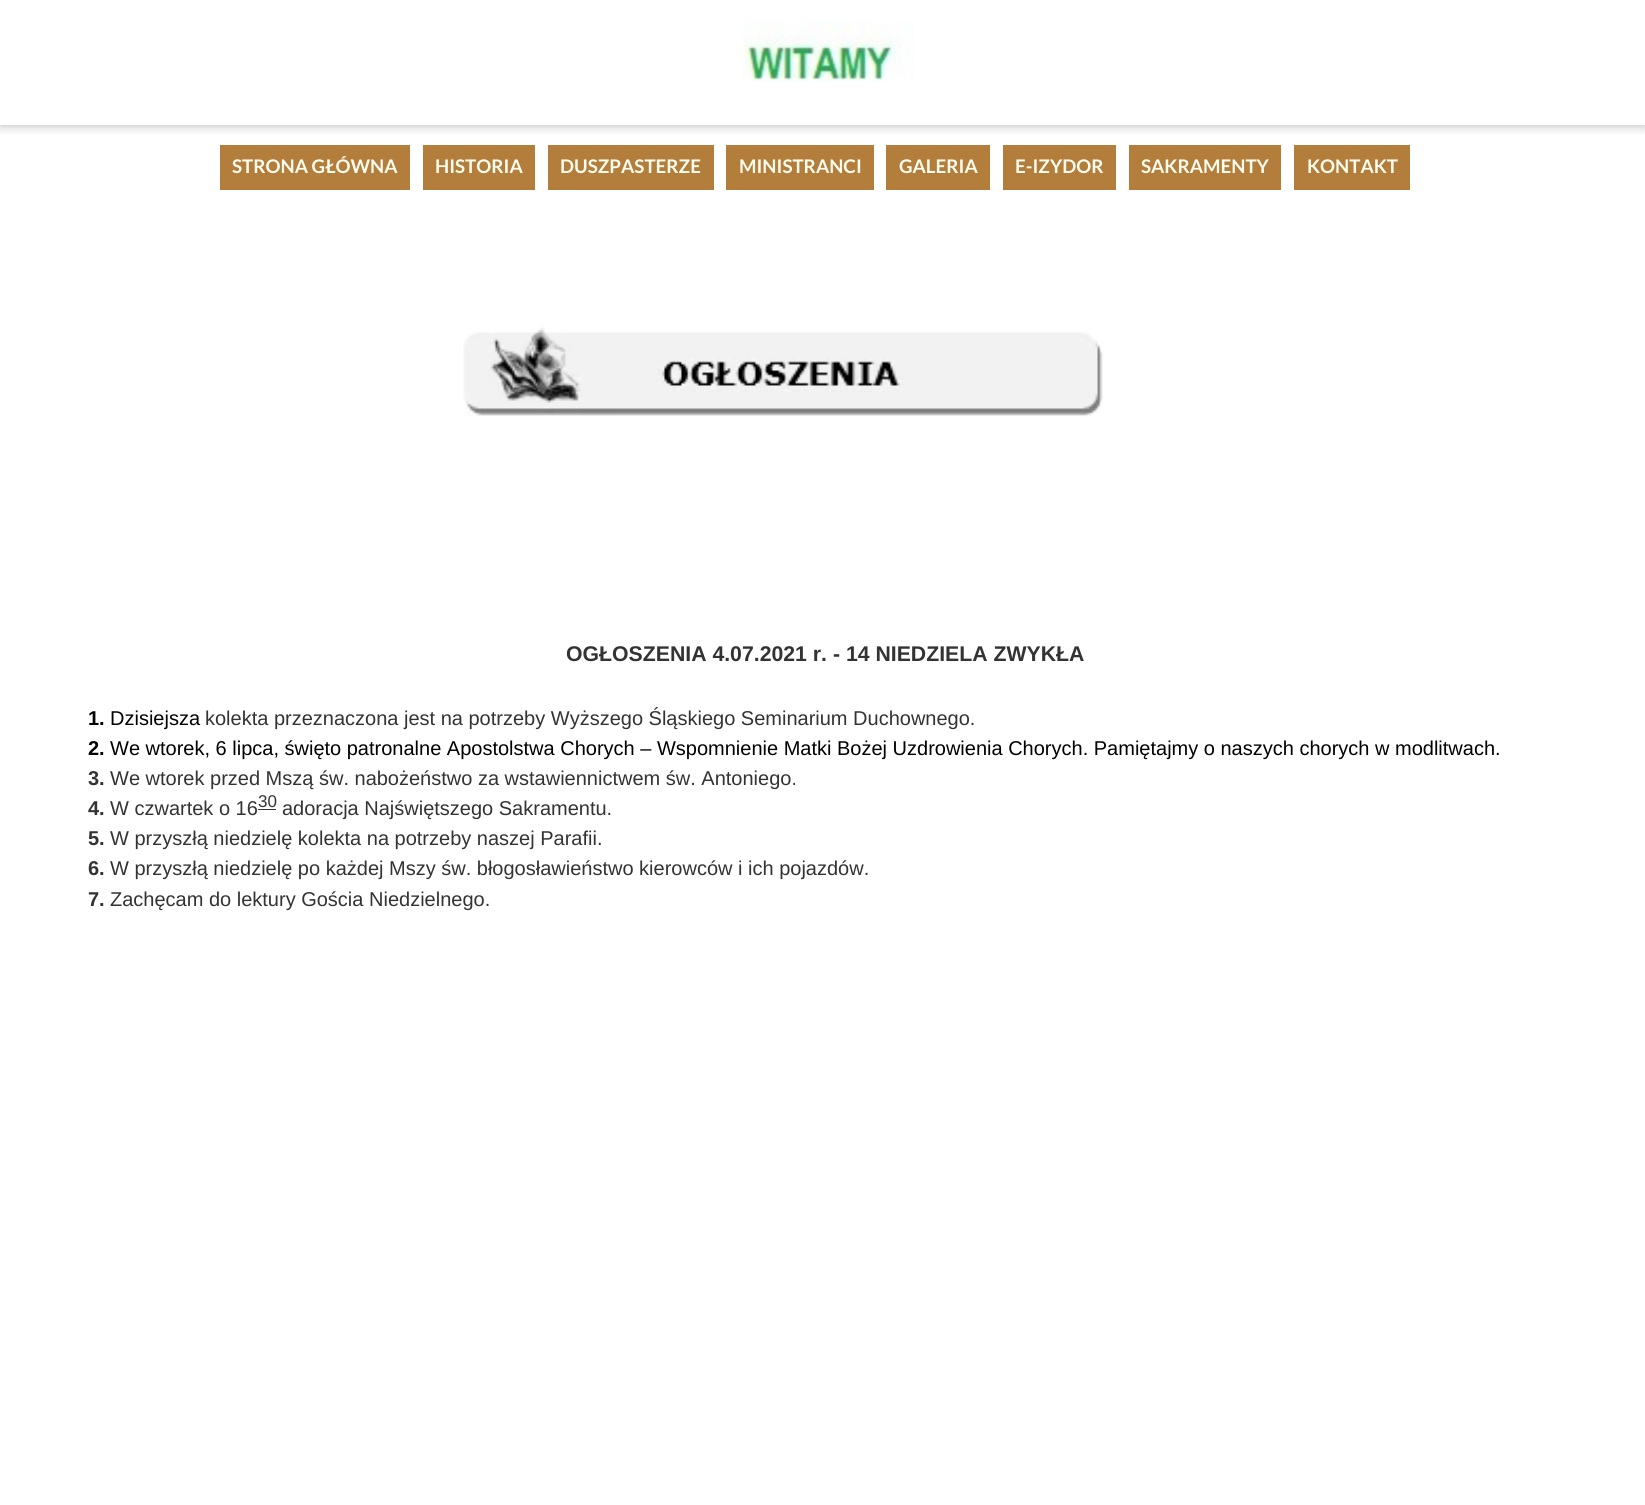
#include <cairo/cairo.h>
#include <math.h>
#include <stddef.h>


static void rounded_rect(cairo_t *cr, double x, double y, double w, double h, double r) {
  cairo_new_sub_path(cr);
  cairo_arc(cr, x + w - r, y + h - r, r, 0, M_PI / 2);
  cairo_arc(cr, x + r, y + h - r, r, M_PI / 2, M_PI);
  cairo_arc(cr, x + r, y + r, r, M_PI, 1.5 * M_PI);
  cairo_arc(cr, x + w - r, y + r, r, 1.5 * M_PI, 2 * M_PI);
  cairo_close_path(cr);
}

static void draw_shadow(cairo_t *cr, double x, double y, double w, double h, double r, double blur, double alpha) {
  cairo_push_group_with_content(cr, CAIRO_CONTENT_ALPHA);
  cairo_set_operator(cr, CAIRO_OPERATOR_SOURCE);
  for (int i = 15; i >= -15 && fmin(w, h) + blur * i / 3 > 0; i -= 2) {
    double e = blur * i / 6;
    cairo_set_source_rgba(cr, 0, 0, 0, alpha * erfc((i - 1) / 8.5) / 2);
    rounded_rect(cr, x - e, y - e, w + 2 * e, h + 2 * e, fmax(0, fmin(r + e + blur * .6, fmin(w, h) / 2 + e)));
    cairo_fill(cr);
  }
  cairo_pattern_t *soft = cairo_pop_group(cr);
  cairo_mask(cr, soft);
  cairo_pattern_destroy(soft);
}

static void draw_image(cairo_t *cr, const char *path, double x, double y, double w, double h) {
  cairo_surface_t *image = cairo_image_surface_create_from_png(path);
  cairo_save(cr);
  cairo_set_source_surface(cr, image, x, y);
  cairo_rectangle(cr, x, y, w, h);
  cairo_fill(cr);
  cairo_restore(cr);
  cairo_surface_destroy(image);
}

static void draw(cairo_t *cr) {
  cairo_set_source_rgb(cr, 1, 1, 1);
  cairo_paint(cr);
  cairo_save(cr);
  cairo_rectangle(cr, 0, 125, 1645, 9);
  cairo_clip(cr);
  cairo_set_source_rgb(cr, 0, 0, 0);
  draw_shadow(cr, 0, 0, 1645, 125, 0, 6, 0.3);
  cairo_restore(cr);
  draw_image(cr, "images/1.png", 743, 21, 171, 61);
  cairo_set_source_rgb(cr, 179 / 255.0, 125 / 255.0, 59 / 255.0);
  cairo_rectangle(cr, 220, 145, 190, 45);
  cairo_fill(cr);
  cairo_rectangle(cr, 423, 145, 112, 45);
  cairo_fill(cr);
  cairo_rectangle(cr, 548, 145, 166, 45);
  cairo_fill(cr);
  cairo_rectangle(cr, 726, 145, 148, 45);
  cairo_fill(cr);
  cairo_rectangle(cr, 886, 145, 104, 45);
  cairo_fill(cr);
  cairo_rectangle(cr, 1003, 145, 113, 45);
  cairo_fill(cr);
  cairo_rectangle(cr, 1129, 145, 152, 45);
  cairo_fill(cr);
  cairo_rectangle(cr, 1294, 145, 116, 45);
  cairo_fill(cr);
  draw_image(cr, "images/2.png", 85, 325, 1018, 209);
  cairo_set_source_rgb(cr, 51 / 255.0, 51 / 255.0, 51 / 255.0);
  cairo_rectangle(cr, 258, 809, 18, 1);
  cairo_fill(cr);
  cairo_select_font_face(cr, "Lato", CAIRO_FONT_SLANT_NORMAL, CAIRO_FONT_WEIGHT_BOLD);
  cairo_set_font_size(cr, 18.75);
  cairo_set_source_rgb(cr, 251 / 255.0, 252 / 255.0, 237 / 255.0);
  cairo_move_to(cr, 232, 173);
  cairo_show_text(cr, "STRONA GŁÓWNA");
  cairo_move_to(cr, 435, 173);
  cairo_show_text(cr, "HISTORIA");
  cairo_move_to(cr, 560, 173);
  cairo_show_text(cr, "DUSZPASTERZE");
  cairo_move_to(cr, 739, 173);
  cairo_show_text(cr, "MINISTRANCI");
  cairo_move_to(cr, 899, 173);
  cairo_show_text(cr, "GALERIA");
  cairo_move_to(cr, 1015, 173);
  cairo_show_text(cr, "E-IZYDOR");
  cairo_move_to(cr, 1141, 173);
  cairo_show_text(cr, "SAKRAMENTY");
  cairo_move_to(cr, 1307, 173);
  cairo_show_text(cr, "KONTAKT");
  cairo_select_font_face(cr, "Liberation Sans", CAIRO_FONT_SLANT_NORMAL, CAIRO_FONT_WEIGHT_BOLD);
  cairo_set_font_size(cr, 21.25);
  cairo_set_source_rgb(cr, 51 / 255.0, 51 / 255.0, 51 / 255.0);
  cairo_move_to(cr, 566, 661);
  cairo_show_text(cr, "OGŁOSZENIA 4.07.2021 r. - 14 NIEDZIELA ZWYKŁA");
  cairo_set_font_size(cr, 20);
  cairo_set_source_rgb(cr, 0, 0, 0);
  cairo_move_to(cr, 88, 725);
  cairo_show_text(cr, "1.");
  cairo_select_font_face(cr, "Liberation Sans", CAIRO_FONT_SLANT_NORMAL, CAIRO_FONT_WEIGHT_NORMAL);
  cairo_move_to(cr, 110, 725);
  cairo_show_text(cr, "Dzisiejsza");
  cairo_set_source_rgb(cr, 51 / 255.0, 51 / 255.0, 51 / 255.0);
  cairo_move_to(cr, 205, 725);
  cairo_show_text(cr, "kolekta przeznaczona jest na potrzeby Wyższego Śląskiego Seminarium Duchownego.");
  cairo_select_font_face(cr, "Liberation Sans", CAIRO_FONT_SLANT_NORMAL, CAIRO_FONT_WEIGHT_BOLD);
  cairo_set_source_rgb(cr, 0, 0, 0);
  cairo_move_to(cr, 88, 755);
  cairo_show_text(cr, "2.");
  cairo_select_font_face(cr, "Liberation Sans", CAIRO_FONT_SLANT_NORMAL, CAIRO_FONT_WEIGHT_NORMAL);
  cairo_move_to(cr, 110, 755);
  cairo_show_text(cr, "We wtorek, 6 lipca, święto patronalne Apostolstwa Chorych – Wspomnienie Matki Bożej Uzdrowienia Chorych. Pamiętajmy o naszych chorych w modlitwach.");
  cairo_select_font_face(cr, "Liberation Sans", CAIRO_FONT_SLANT_NORMAL, CAIRO_FONT_WEIGHT_BOLD);
  cairo_set_source_rgb(cr, 51 / 255.0, 51 / 255.0, 51 / 255.0);
  cairo_move_to(cr, 88, 785);
  cairo_show_text(cr, "3.");
  cairo_select_font_face(cr, "Liberation Sans", CAIRO_FONT_SLANT_NORMAL, CAIRO_FONT_WEIGHT_NORMAL);
  cairo_move_to(cr, 110, 785);
  cairo_show_text(cr, "We wtorek przed Mszą św. nabożeństwo za wstawiennictwem św. Antoniego.");
  cairo_select_font_face(cr, "Liberation Sans", CAIRO_FONT_SLANT_NORMAL, CAIRO_FONT_WEIGHT_BOLD);
  cairo_move_to(cr, 88, 815);
  cairo_show_text(cr, "4.");
  cairo_select_font_face(cr, "Liberation Sans", CAIRO_FONT_SLANT_NORMAL, CAIRO_FONT_WEIGHT_NORMAL);
  cairo_move_to(cr, 110, 815);
  cairo_show_text(cr, "W czwartek o 16");
  cairo_set_font_size(cr, 17);
  cairo_move_to(cr, 258, 807);
  cairo_show_text(cr, "30");
  cairo_set_font_size(cr, 20);
  cairo_move_to(cr, 282, 815);
  cairo_show_text(cr, "adoracja Najświętszego Sakramentu.");
  cairo_select_font_face(cr, "Liberation Sans", CAIRO_FONT_SLANT_NORMAL, CAIRO_FONT_WEIGHT_BOLD);
  cairo_move_to(cr, 88, 845);
  cairo_show_text(cr, "5.");
  cairo_select_font_face(cr, "Liberation Sans", CAIRO_FONT_SLANT_NORMAL, CAIRO_FONT_WEIGHT_NORMAL);
  cairo_move_to(cr, 110, 845);
  cairo_show_text(cr, "W przyszłą niedzielę kolekta na potrzeby naszej Parafii.");
  cairo_select_font_face(cr, "Liberation Sans", CAIRO_FONT_SLANT_NORMAL, CAIRO_FONT_WEIGHT_BOLD);
  cairo_move_to(cr, 88, 875);
  cairo_show_text(cr, "6.");
  cairo_select_font_face(cr, "Liberation Sans", CAIRO_FONT_SLANT_NORMAL, CAIRO_FONT_WEIGHT_NORMAL);
  cairo_move_to(cr, 110, 875);
  cairo_show_text(cr, "W przyszłą niedzielę po każdej Mszy św. błogosławieństwo kierowców i ich pojazdów.");
  cairo_select_font_face(cr, "Liberation Sans", CAIRO_FONT_SLANT_NORMAL, CAIRO_FONT_WEIGHT_BOLD);
  cairo_move_to(cr, 88, 906);
  cairo_show_text(cr, "7.");
  cairo_select_font_face(cr, "Liberation Sans", CAIRO_FONT_SLANT_NORMAL, CAIRO_FONT_WEIGHT_NORMAL);
  cairo_move_to(cr, 110, 906);
  cairo_show_text(cr, "Zachęcam do lektury Gościa Niedzielnego.");
}

int main(void) {
  cairo_surface_t *surface = cairo_image_surface_create(CAIRO_FORMAT_RGB24, 1645, 1505);
  cairo_t *cr = cairo_create(surface);
  cairo_font_options_t *options = cairo_font_options_create();
  cairo_font_options_set_hint_metrics(options, CAIRO_HINT_METRICS_OFF);
  cairo_font_options_set_hint_style(options, CAIRO_HINT_STYLE_NONE);
  cairo_set_font_options(cr, options);
  cairo_set_miter_limit(cr, 4);
  draw(cr);
  cairo_surface_write_to_png(surface, "out.png");
  cairo_font_options_destroy(options);
  cairo_destroy(cr);
  cairo_surface_destroy(surface);
  return 0;
}
